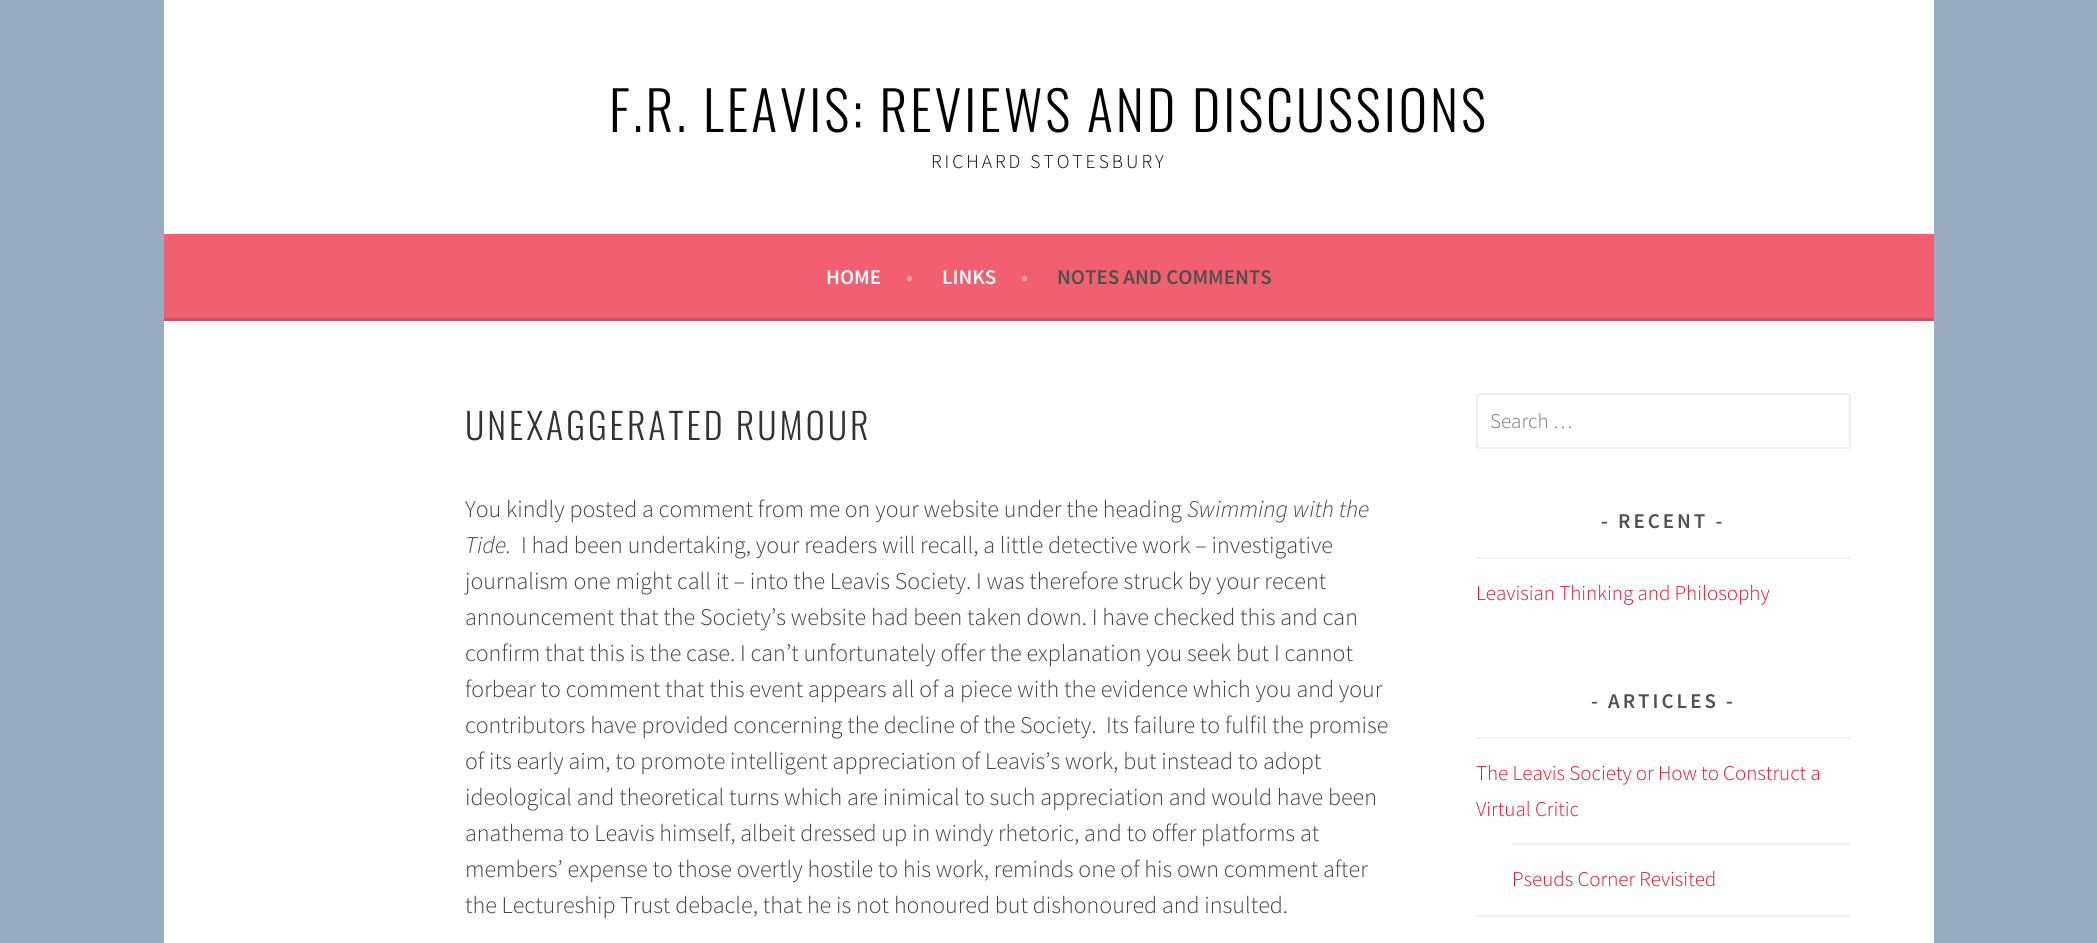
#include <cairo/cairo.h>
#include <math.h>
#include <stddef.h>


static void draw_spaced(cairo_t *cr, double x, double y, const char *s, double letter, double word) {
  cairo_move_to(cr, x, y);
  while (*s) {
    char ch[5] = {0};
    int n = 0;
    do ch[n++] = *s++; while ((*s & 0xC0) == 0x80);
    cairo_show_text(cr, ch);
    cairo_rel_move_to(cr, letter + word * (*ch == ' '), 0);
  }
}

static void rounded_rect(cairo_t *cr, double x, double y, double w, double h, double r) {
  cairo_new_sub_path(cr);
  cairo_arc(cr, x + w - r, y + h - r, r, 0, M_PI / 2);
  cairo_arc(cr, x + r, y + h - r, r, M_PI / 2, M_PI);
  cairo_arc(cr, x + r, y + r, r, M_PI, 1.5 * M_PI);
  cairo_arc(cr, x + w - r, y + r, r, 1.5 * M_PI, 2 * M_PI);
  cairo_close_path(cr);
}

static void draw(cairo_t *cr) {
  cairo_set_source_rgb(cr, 153 / 255.0, 172 / 255.0, 191 / 255.0);
  cairo_paint(cr);
  cairo_set_source_rgb(cr, 1, 1, 1);
  cairo_rectangle(cr, 164, 0, 1770, 234);
  cairo_fill(cr);
  cairo_set_source_rgb(cr, 242 / 255.0, 95 / 255.0, 112 / 255.0);
  cairo_rectangle(cr, 164, 234, 1770, 84);
  cairo_fill(cr);
  cairo_set_source_rgb(cr, 206 / 255.0, 81 / 255.0, 95 / 255.0);
  cairo_rectangle(cr, 164, 318, 1770, 3);
  cairo_fill(cr);
  cairo_set_source_rgb(cr, 1, 1, 1);
  cairo_rectangle(cr, 164, 321, 1770, 622);
  cairo_fill(cr);
  rounded_rect(cr, 1477, 394, 373, 54, 2);
  cairo_set_source_rgb(cr, 238 / 255.0, 238 / 255.0, 238 / 255.0);
  cairo_stroke(cr);
  cairo_set_source_rgb(cr, 242 / 255.0, 242 / 255.0, 242 / 255.0);
  cairo_rectangle(cr, 1476, 557, 375, 2);
  cairo_fill(cr);
  cairo_rectangle(cr, 1476, 737, 375, 2);
  cairo_fill(cr);
  cairo_rectangle(cr, 1512, 843, 339, 2);
  cairo_fill(cr);
  cairo_rectangle(cr, 1476, 915, 375, 2);
  cairo_fill(cr);
  cairo_select_font_face(cr, "Oswald Light", CAIRO_FONT_SLANT_NORMAL, CAIRO_FONT_WEIGHT_NORMAL);
  cairo_set_font_size(cr, 54);
  cairo_set_source_rgb(cr, 0, 0, 0);
  draw_spaced(cr, 609, 132, "F.R. LEAVIS: REVIEWS AND DISCUSSIONS", 3, 0);
  cairo_select_font_face(cr, "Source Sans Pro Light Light", CAIRO_FONT_SLANT_NORMAL, CAIRO_FONT_WEIGHT_NORMAL);
  cairo_set_font_size(cr, 19.5);
  draw_spaced(cr, 931, 168, "RICHARD STOTESBURY", 3, 0);
  cairo_select_font_face(cr, "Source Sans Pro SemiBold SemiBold", CAIRO_FONT_SLANT_NORMAL, CAIRO_FONT_WEIGHT_NORMAL);
  cairo_set_font_size(cr, 21);
  cairo_set_source_rgb(cr, 1, 1, 1);
  cairo_move_to(cr, 826, 284);
  cairo_show_text(cr, "HOME");
  cairo_set_source_rgb(cr, 1, 164 / 255.0, 173 / 255.0);
  cairo_move_to(cr, 906, 284);
  cairo_show_text(cr, "•");
  cairo_set_source_rgb(cr, 1, 1, 1);
  cairo_move_to(cr, 942, 284);
  cairo_show_text(cr, "LINKS");
  cairo_set_source_rgb(cr, 1, 164 / 255.0, 173 / 255.0);
  cairo_move_to(cr, 1021, 284);
  cairo_show_text(cr, "•");
  cairo_set_source_rgb(cr, 79 / 255.0, 79 / 255.0, 79 / 255.0);
  cairo_move_to(cr, 1057, 284);
  cairo_show_text(cr, "NOTES AND COMMENTS");
  cairo_select_font_face(cr, "Oswald Light", CAIRO_FONT_SLANT_NORMAL, CAIRO_FONT_WEIGHT_NORMAL);
  cairo_set_font_size(cr, 36);
  cairo_set_source_rgb(cr, 51 / 255.0, 51 / 255.0, 51 / 255.0);
  draw_spaced(cr, 465, 440, "UNEXAGGERATED RUMOUR", 3, 0);
  cairo_select_font_face(cr, "Source Sans Pro Light Light", CAIRO_FONT_SLANT_NORMAL, CAIRO_FONT_WEIGHT_NORMAL);
  cairo_set_font_size(cr, 24);
  cairo_set_source_rgb(cr, 64 / 255.0, 64 / 255.0, 64 / 255.0);
  cairo_move_to(cr, 465, 517);
  cairo_show_text(cr, "You kindly posted a comment from me on your website under the heading");
  cairo_select_font_face(cr, "Source Sans Pro Light Light", CAIRO_FONT_SLANT_ITALIC, CAIRO_FONT_WEIGHT_NORMAL);
  cairo_move_to(cr, 1187, 517);
  cairo_show_text(cr, "Swimming with the");
  cairo_move_to(cr, 465, 553);
  cairo_show_text(cr, "Tide.");
  cairo_select_font_face(cr, "Source Sans Pro Light Light", CAIRO_FONT_SLANT_NORMAL, CAIRO_FONT_WEIGHT_NORMAL);
  cairo_move_to(cr, 521, 553);
  cairo_show_text(cr, "I had been undertaking, your readers will recall, a little detective work – investigative");
  cairo_move_to(cr, 465, 589);
  cairo_show_text(cr, "journalism one might call it – into the Leavis Society. I was therefore struck by your recent");
  cairo_move_to(cr, 465, 625);
  cairo_show_text(cr, "announcement that the Society’s website had been taken down. I have checked this and can");
  cairo_move_to(cr, 465, 661);
  cairo_show_text(cr, "confirm that this is the case. I can’t unfortunately offer the explanation you seek but I cannot");
  cairo_move_to(cr, 465, 697);
  cairo_show_text(cr, "forbear to comment that this event appears all of a piece with the evidence which you and your");
  cairo_move_to(cr, 465, 733);
  cairo_show_text(cr, "contributors have provided concerning the decline of the Society.  Its failure to fulfil the promise");
  cairo_move_to(cr, 465, 769);
  cairo_show_text(cr, "of its early aim, to promote intelligent appreciation of Leavis’s work, but instead to adopt");
  cairo_move_to(cr, 465, 805);
  cairo_show_text(cr, "ideological and theoretical turns which are inimical to such appreciation and would have been");
  cairo_move_to(cr, 465, 841);
  cairo_show_text(cr, "anathema to Leavis himself, albeit dressed up in windy rhetoric, and to offer platforms at");
  cairo_move_to(cr, 465, 877);
  cairo_show_text(cr, "members’ expense to those overtly hostile to his work, reminds one of his own comment after");
  cairo_move_to(cr, 465, 913);
  cairo_show_text(cr, "the Lectureship Trust debacle, that he is not honoured but dishonoured and insulted.");
  cairo_set_font_size(cr, 21);
  cairo_set_source_rgb(cr, 117 / 255.0, 117 / 255.0, 117 / 255.0);
  cairo_move_to(cr, 1490, 428);
  cairo_show_text(cr, "Search …");
  cairo_select_font_face(cr, "Source Sans Pro SemiBold SemiBold", CAIRO_FONT_SLANT_NORMAL, CAIRO_FONT_WEIGHT_NORMAL);
  cairo_set_source_rgb(cr, 79 / 255.0, 79 / 255.0, 79 / 255.0);
  draw_spaced(cr, 1601, 528, "- RECENT -", 3, 0);
  cairo_select_font_face(cr, "Source Sans Pro Light Light", CAIRO_FONT_SLANT_NORMAL, CAIRO_FONT_WEIGHT_NORMAL);
  cairo_set_source_rgb(cr, 225 / 255.0, 18 / 255.0, 42 / 255.0);
  cairo_move_to(cr, 1476, 600);
  cairo_show_text(cr, "Leavisian Thinking and Philosophy");
  cairo_select_font_face(cr, "Source Sans Pro SemiBold SemiBold", CAIRO_FONT_SLANT_NORMAL, CAIRO_FONT_WEIGHT_NORMAL);
  cairo_set_source_rgb(cr, 79 / 255.0, 79 / 255.0, 79 / 255.0);
  draw_spaced(cr, 1591, 708, "- ARTICLES -", 3, 0);
  cairo_select_font_face(cr, "Source Sans Pro Light Light", CAIRO_FONT_SLANT_NORMAL, CAIRO_FONT_WEIGHT_NORMAL);
  cairo_set_source_rgb(cr, 225 / 255.0, 18 / 255.0, 42 / 255.0);
  cairo_move_to(cr, 1476, 780);
  cairo_show_text(cr, "The Leavis Society or How to Construct a");
  cairo_move_to(cr, 1476, 816);
  cairo_show_text(cr, "Virtual Critic");
  cairo_move_to(cr, 1512, 886);
  cairo_show_text(cr, "Pseuds Corner Revisited");
}

int main(void) {
  cairo_surface_t *surface = cairo_image_surface_create(CAIRO_FORMAT_RGB24, 2097, 943);
  cairo_t *cr = cairo_create(surface);
  cairo_font_options_t *options = cairo_font_options_create();
  cairo_font_options_set_hint_metrics(options, CAIRO_HINT_METRICS_OFF);
  cairo_font_options_set_hint_style(options, CAIRO_HINT_STYLE_NONE);
  cairo_set_font_options(cr, options);
  cairo_set_miter_limit(cr, 4);
  draw(cr);
  cairo_surface_write_to_png(surface, "out.png");
  cairo_font_options_destroy(options);
  cairo_destroy(cr);
  cairo_surface_destroy(surface);
  return 0;
}
